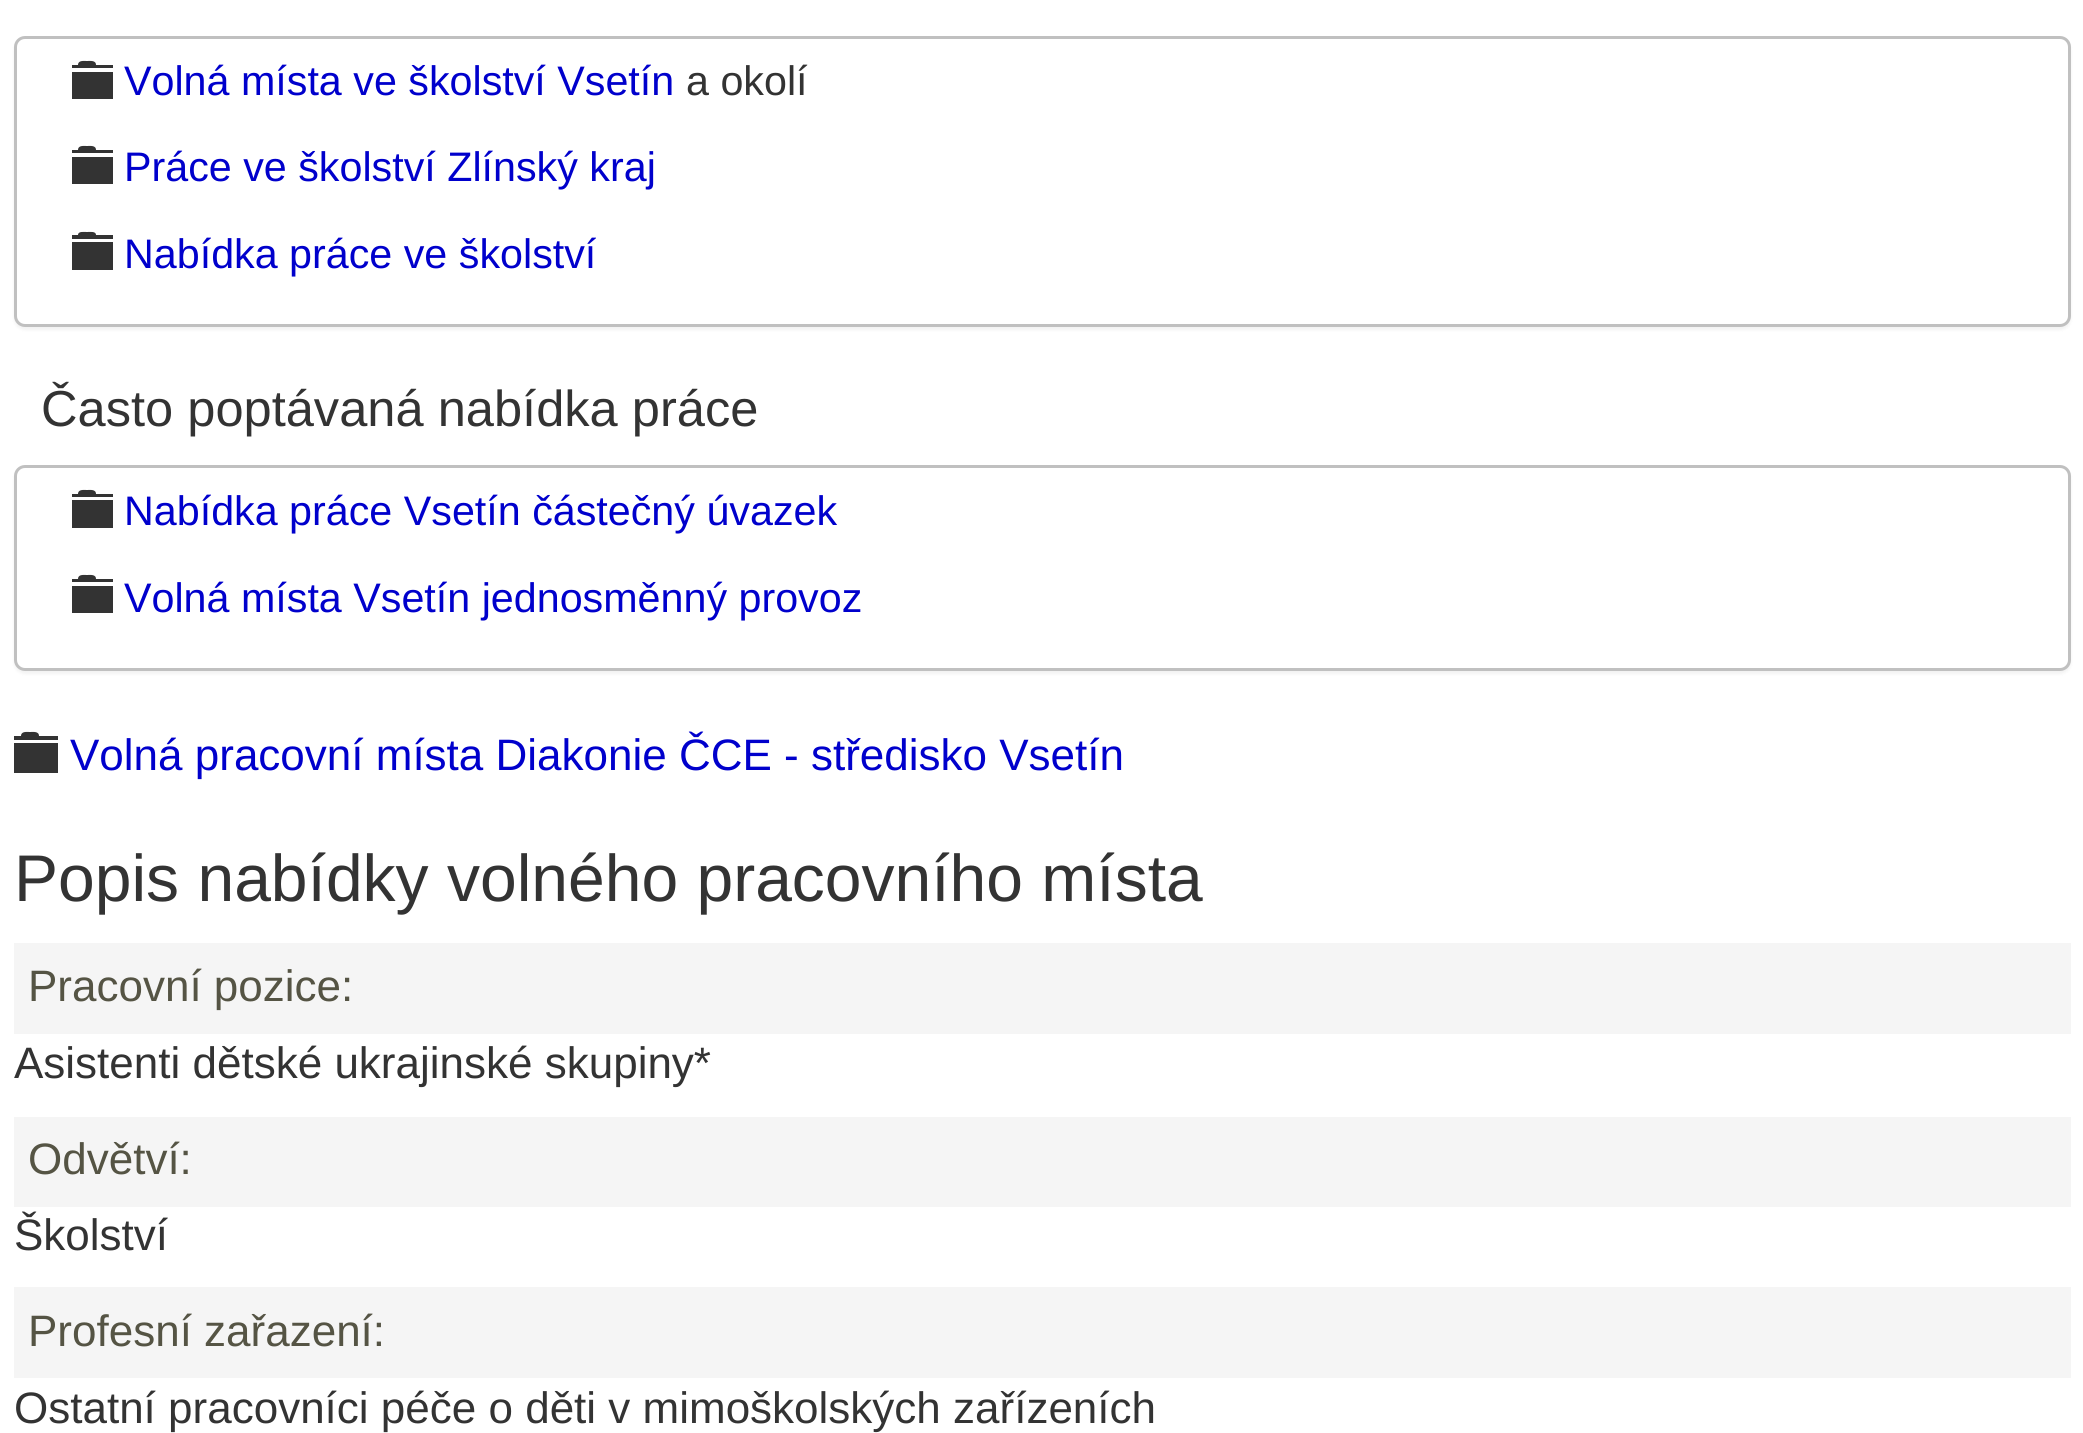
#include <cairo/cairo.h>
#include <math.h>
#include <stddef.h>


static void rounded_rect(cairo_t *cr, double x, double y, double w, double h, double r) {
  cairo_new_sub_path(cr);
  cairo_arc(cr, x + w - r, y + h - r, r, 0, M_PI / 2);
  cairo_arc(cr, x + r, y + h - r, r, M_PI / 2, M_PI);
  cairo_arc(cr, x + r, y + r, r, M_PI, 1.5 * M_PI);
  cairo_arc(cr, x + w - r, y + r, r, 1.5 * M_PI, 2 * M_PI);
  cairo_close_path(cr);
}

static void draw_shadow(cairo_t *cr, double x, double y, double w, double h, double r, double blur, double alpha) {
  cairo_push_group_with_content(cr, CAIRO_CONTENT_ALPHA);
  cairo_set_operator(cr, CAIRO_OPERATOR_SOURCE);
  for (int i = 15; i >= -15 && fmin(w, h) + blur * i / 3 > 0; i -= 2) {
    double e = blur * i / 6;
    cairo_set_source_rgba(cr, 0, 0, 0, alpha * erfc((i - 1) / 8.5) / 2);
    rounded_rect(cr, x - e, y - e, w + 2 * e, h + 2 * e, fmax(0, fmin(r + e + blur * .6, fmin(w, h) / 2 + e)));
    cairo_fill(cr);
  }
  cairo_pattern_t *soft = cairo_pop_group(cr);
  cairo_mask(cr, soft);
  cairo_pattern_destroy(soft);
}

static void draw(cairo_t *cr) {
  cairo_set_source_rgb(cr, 1, 1, 1);
  cairo_paint(cr);
  cairo_set_source_rgb(cr, 0, 0, 0);
  draw_shadow(cr, 14, 39, 2057, 291, 11, 1.5, 0.05);
  cairo_set_source_rgb(cr, 1, 1, 1);
  rounded_rect(cr, 15.5, 37.5, 2054, 288, 9.5);
  cairo_fill_preserve(cr);
  cairo_set_source_rgb(cr, 192 / 255.0, 192 / 255.0, 192 / 255.0);
  cairo_set_line_width(cr, 3);
  cairo_stroke(cr);
  cairo_set_source_rgb(cr, 51 / 255.0, 51 / 255.0, 51 / 255.0);
  cairo_new_path(cr);
  cairo_move_to(cr, 113, 65);
  cairo_line_to(cr, 113, 68);
  cairo_line_to(cr, 72, 68);
  cairo_line_to(cr, 72, 65);
  cairo_line_to(cr, 78, 65);
  cairo_curve_to(cr, 78, 60, 84, 61, 87, 61);
  cairo_curve_to(cr, 90, 61, 96, 60, 96, 65);
  cairo_close_path(cr);
  cairo_move_to(cr, 72, 72);
  cairo_line_to(cr, 113, 72);
  cairo_line_to(cr, 113, 99);
  cairo_line_to(cr, 72, 99);
  cairo_close_path(cr);
  cairo_fill(cr);
  cairo_new_path(cr);
  cairo_move_to(cr, 113, 150);
  cairo_line_to(cr, 113, 153);
  cairo_line_to(cr, 72, 153);
  cairo_line_to(cr, 72, 150);
  cairo_line_to(cr, 78, 150);
  cairo_curve_to(cr, 78, 145, 84, 146, 87, 146);
  cairo_curve_to(cr, 90, 146, 96, 145, 96, 150);
  cairo_close_path(cr);
  cairo_move_to(cr, 72, 157);
  cairo_line_to(cr, 113, 157);
  cairo_line_to(cr, 113, 184);
  cairo_line_to(cr, 72, 184);
  cairo_close_path(cr);
  cairo_fill(cr);
  cairo_new_path(cr);
  cairo_move_to(cr, 113, 235);
  cairo_line_to(cr, 113, 239);
  cairo_line_to(cr, 72, 239);
  cairo_line_to(cr, 72, 235);
  cairo_line_to(cr, 78, 235);
  cairo_curve_to(cr, 78, 231, 84, 232, 87, 232);
  cairo_curve_to(cr, 90, 232, 96, 231, 96, 235);
  cairo_close_path(cr);
  cairo_move_to(cr, 72, 242);
  cairo_line_to(cr, 113, 242);
  cairo_line_to(cr, 113, 270);
  cairo_line_to(cr, 72, 270);
  cairo_close_path(cr);
  cairo_fill(cr);
  cairo_set_source_rgb(cr, 0, 0, 0);
  draw_shadow(cr, 14, 468, 2057, 206, 11, 1.5, 0.05);
  cairo_set_source_rgb(cr, 1, 1, 1);
  rounded_rect(cr, 15.5, 466.5, 2054, 203, 9.5);
  cairo_fill_preserve(cr);
  cairo_set_source_rgb(cr, 192 / 255.0, 192 / 255.0, 192 / 255.0);
  cairo_stroke(cr);
  cairo_set_source_rgb(cr, 51 / 255.0, 51 / 255.0, 51 / 255.0);
  cairo_new_path(cr);
  cairo_move_to(cr, 113, 494);
  cairo_line_to(cr, 113, 497);
  cairo_line_to(cr, 72, 497);
  cairo_line_to(cr, 72, 494);
  cairo_line_to(cr, 78, 494);
  cairo_curve_to(cr, 78, 489, 84, 490, 87, 490);
  cairo_curve_to(cr, 90, 490, 96, 489, 96, 494);
  cairo_close_path(cr);
  cairo_move_to(cr, 72, 500);
  cairo_line_to(cr, 113, 500);
  cairo_line_to(cr, 113, 528);
  cairo_line_to(cr, 72, 528);
  cairo_close_path(cr);
  cairo_fill(cr);
  cairo_new_path(cr);
  cairo_move_to(cr, 113, 579);
  cairo_line_to(cr, 113, 582);
  cairo_line_to(cr, 72, 582);
  cairo_line_to(cr, 72, 579);
  cairo_line_to(cr, 78, 579);
  cairo_curve_to(cr, 78, 574, 84, 575, 87, 575);
  cairo_curve_to(cr, 90, 575, 96, 574, 96, 579);
  cairo_close_path(cr);
  cairo_move_to(cr, 72, 586);
  cairo_line_to(cr, 113, 586);
  cairo_line_to(cr, 113, 613);
  cairo_line_to(cr, 72, 613);
  cairo_close_path(cr);
  cairo_fill(cr);
  cairo_new_path(cr);
  cairo_move_to(cr, 58, 736);
  cairo_line_to(cr, 58, 740);
  cairo_line_to(cr, 14, 740);
  cairo_line_to(cr, 14, 736);
  cairo_line_to(cr, 21, 736);
  cairo_curve_to(cr, 21, 731, 27, 732, 30, 732);
  cairo_curve_to(cr, 33, 732, 39, 731, 39, 736);
  cairo_close_path(cr);
  cairo_move_to(cr, 14, 743);
  cairo_line_to(cr, 58, 743);
  cairo_line_to(cr, 58, 773);
  cairo_line_to(cr, 14, 773);
  cairo_close_path(cr);
  cairo_fill(cr);
  cairo_set_source_rgb(cr, 245 / 255.0, 245 / 255.0, 245 / 255.0);
  cairo_rectangle(cr, 14, 943, 2057, 91);
  cairo_fill(cr);
  cairo_rectangle(cr, 14, 1117, 2057, 90);
  cairo_fill(cr);
  cairo_rectangle(cr, 14, 1287, 2057, 91);
  cairo_fill(cr);
  cairo_select_font_face(cr, "Liberation Sans", CAIRO_FONT_SLANT_NORMAL, CAIRO_FONT_WEIGHT_NORMAL);
  cairo_set_font_size(cr, 41.25);
  cairo_set_source_rgb(cr, 0, 0, 204 / 255.0);
  cairo_move_to(cr, 124, 95);
  cairo_show_text(cr, "Volná místa ve školství Vsetín");
  cairo_set_source_rgb(cr, 51 / 255.0, 51 / 255.0, 51 / 255.0);
  cairo_move_to(cr, 686, 95);
  cairo_show_text(cr, "a okolí");
  cairo_set_source_rgb(cr, 0, 0, 204 / 255.0);
  cairo_move_to(cr, 124, 181);
  cairo_show_text(cr, "Práce ve školství Zlínský kraj");
  cairo_move_to(cr, 124, 268);
  cairo_show_text(cr, "Nabídka práce ve školství");
  cairo_set_font_size(cr, 50.6);
  cairo_set_source_rgb(cr, 51 / 255.0, 51 / 255.0, 51 / 255.0);
  cairo_move_to(cr, 41, 426);
  cairo_show_text(cr, "Často poptávaná nabídka práce");
  cairo_set_font_size(cr, 41.25);
  cairo_set_source_rgb(cr, 0, 0, 204 / 255.0);
  cairo_move_to(cr, 124, 525);
  cairo_show_text(cr, "Nabídka práce Vsetín částečný úvazek");
  cairo_move_to(cr, 124, 612);
  cairo_show_text(cr, "Volná místa Vsetín jednosměnný provoz");
  cairo_set_font_size(cr, 44);
  cairo_move_to(cr, 70, 770);
  cairo_show_text(cr, "Volná pracovní místa Diakonie ČCE - středisko Vsetín");
  cairo_set_font_size(cr, 66);
  cairo_set_source_rgb(cr, 51 / 255.0, 51 / 255.0, 51 / 255.0);
  cairo_move_to(cr, 14, 901);
  cairo_show_text(cr, "Popis nabídky volného pracovního místa");
  cairo_set_font_size(cr, 44);
  cairo_set_source_rgb(cr, 85 / 255.0, 84 / 255.0, 68 / 255.0);
  cairo_move_to(cr, 28, 1001);
  cairo_show_text(cr, "Pracovní pozice:");
  cairo_set_source_rgb(cr, 51 / 255.0, 51 / 255.0, 51 / 255.0);
  cairo_move_to(cr, 14, 1078);
  cairo_show_text(cr, "Asistenti dětské ukrajinské skupiny*");
  cairo_set_source_rgb(cr, 85 / 255.0, 84 / 255.0, 68 / 255.0);
  cairo_move_to(cr, 28, 1174);
  cairo_show_text(cr, "Odvětví:");
  cairo_set_source_rgb(cr, 51 / 255.0, 51 / 255.0, 51 / 255.0);
  cairo_move_to(cr, 14, 1250);
  cairo_show_text(cr, "Školství");
  cairo_set_source_rgb(cr, 85 / 255.0, 84 / 255.0, 68 / 255.0);
  cairo_move_to(cr, 28, 1346);
  cairo_show_text(cr, "Profesní zařazení:");
  cairo_set_source_rgb(cr, 51 / 255.0, 51 / 255.0, 51 / 255.0);
  cairo_move_to(cr, 14, 1423);
  cairo_show_text(cr, "Ostatní pracovníci péče o děti v mimoškolských zařízeních");
}

int main(void) {
  cairo_surface_t *surface = cairo_image_surface_create(CAIRO_FORMAT_RGB24, 2083, 1433);
  cairo_t *cr = cairo_create(surface);
  cairo_font_options_t *options = cairo_font_options_create();
  cairo_font_options_set_hint_metrics(options, CAIRO_HINT_METRICS_OFF);
  cairo_font_options_set_hint_style(options, CAIRO_HINT_STYLE_NONE);
  cairo_set_font_options(cr, options);
  cairo_set_miter_limit(cr, 4);
  draw(cr);
  cairo_surface_write_to_png(surface, "out.png");
  cairo_font_options_destroy(options);
  cairo_destroy(cr);
  cairo_surface_destroy(surface);
  return 0;
}
